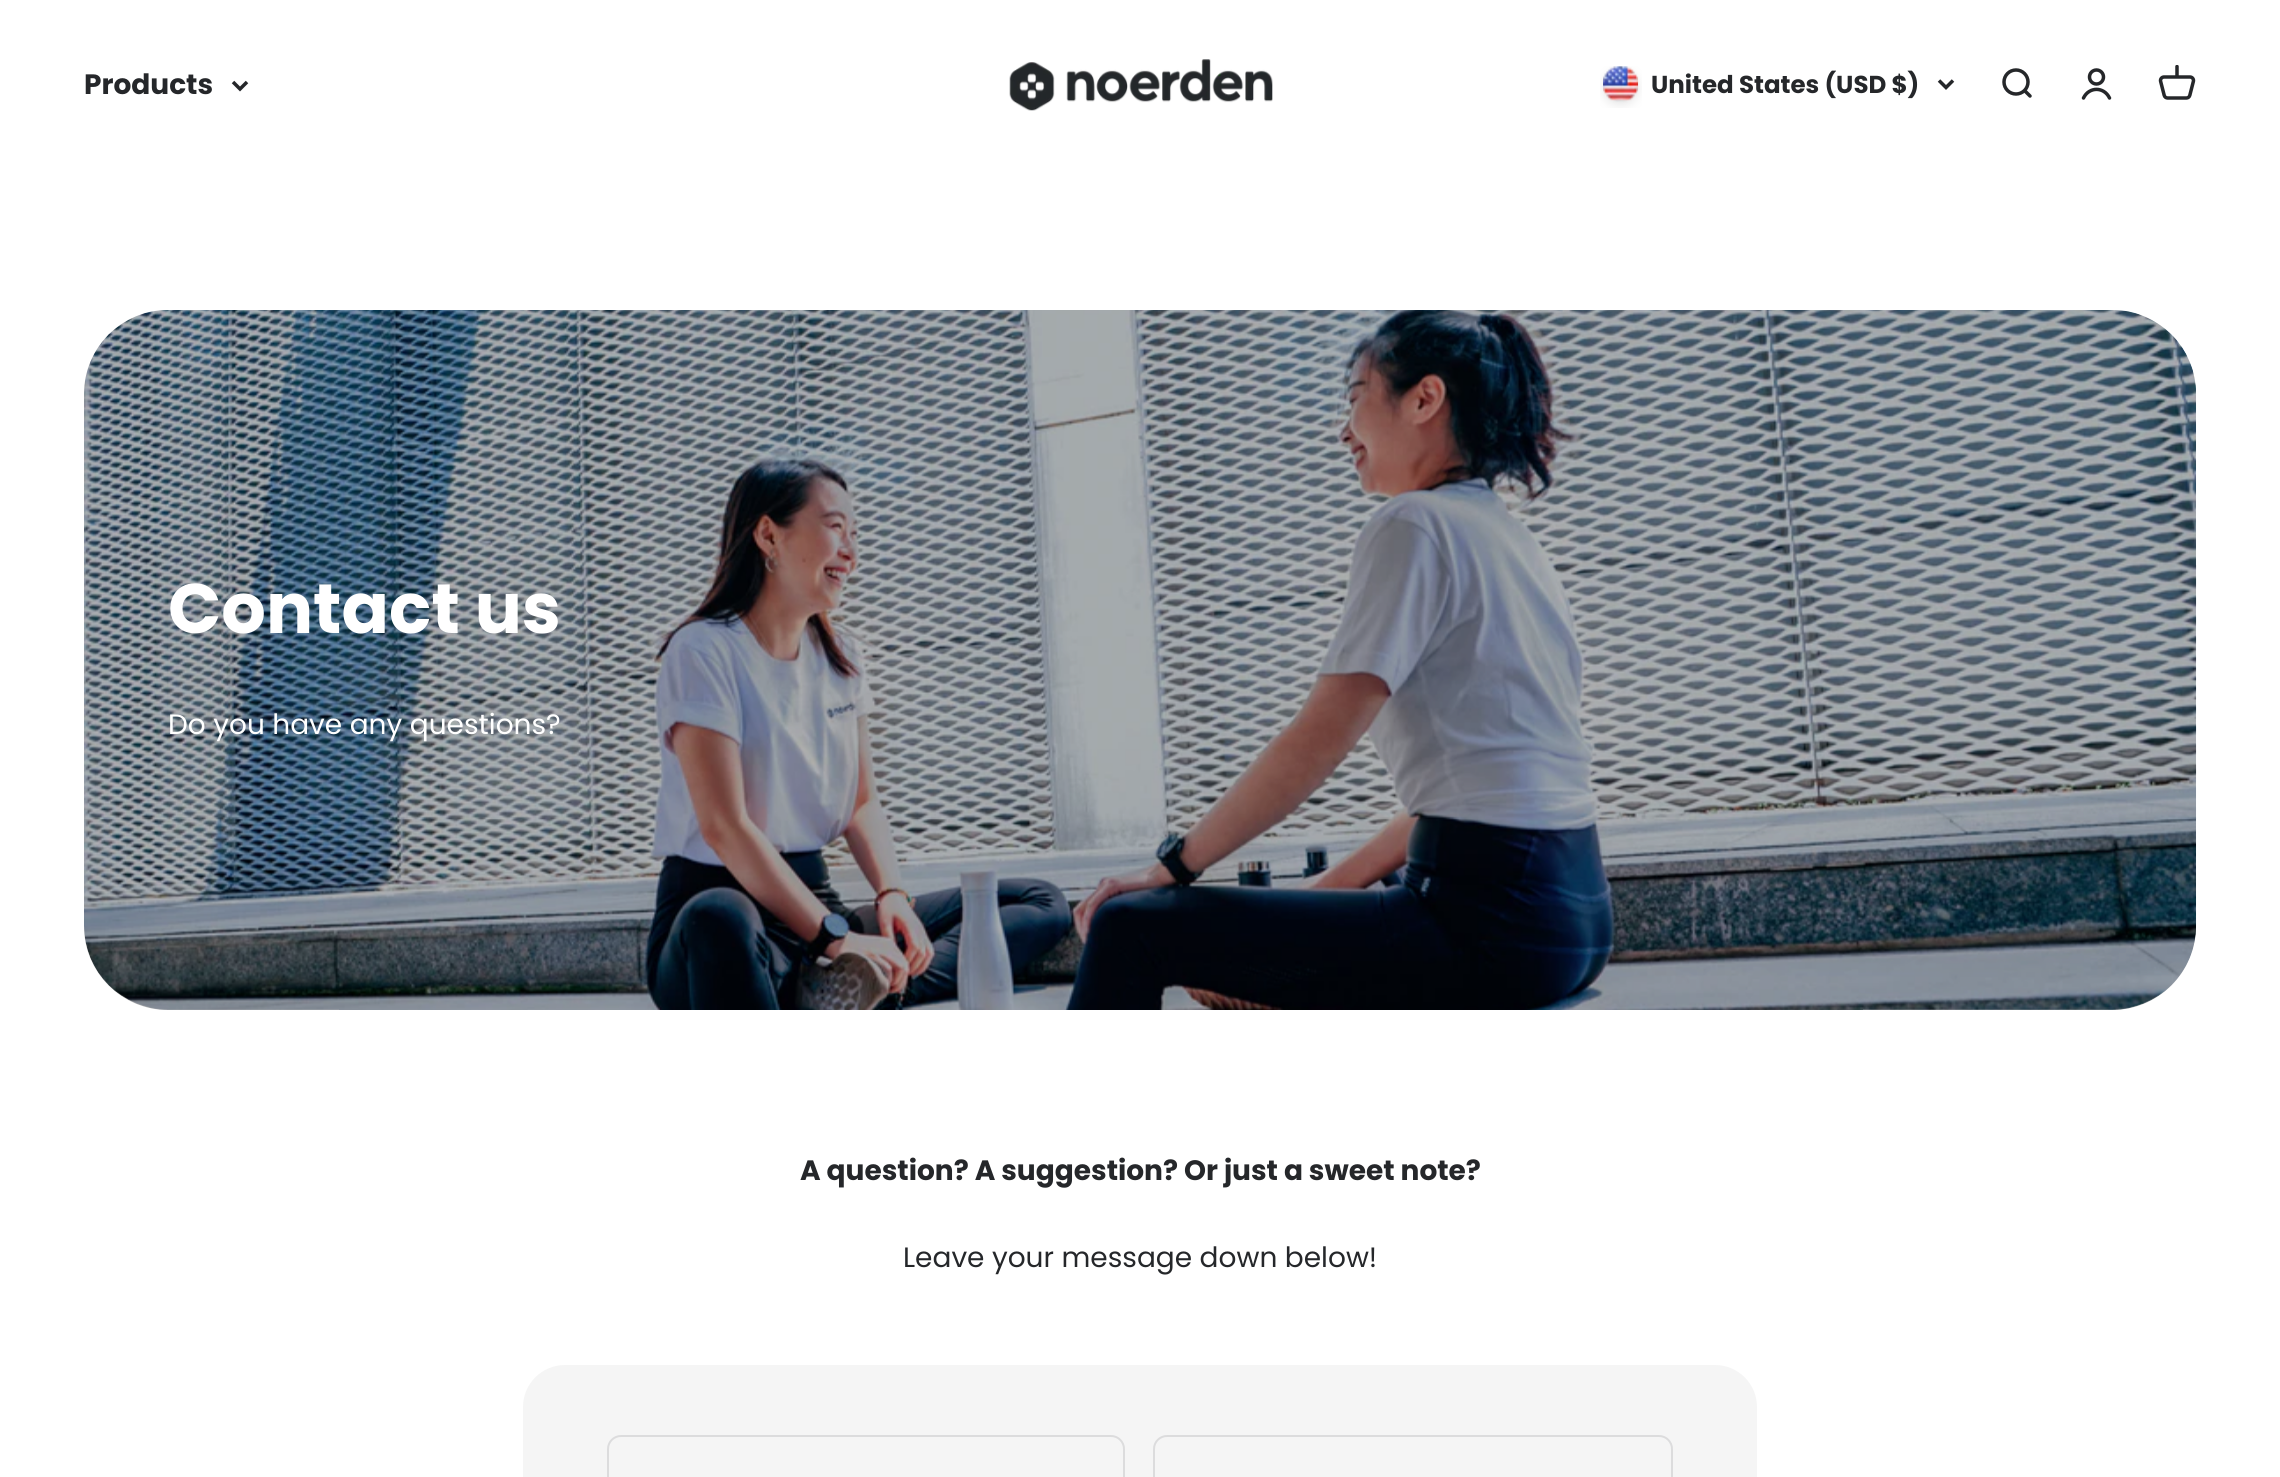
#include <cairo/cairo.h>
#include <math.h>
#include <stddef.h>


static void rounded_rect(cairo_t *cr, double x, double y, double w, double h, double r) {
  cairo_new_sub_path(cr);
  cairo_arc(cr, x + w - r, y + h - r, r, 0, M_PI / 2);
  cairo_arc(cr, x + r, y + h - r, r, M_PI / 2, M_PI);
  cairo_arc(cr, x + r, y + r, r, M_PI, 1.5 * M_PI);
  cairo_arc(cr, x + w - r, y + r, r, 1.5 * M_PI, 2 * M_PI);
  cairo_close_path(cr);
}

static void draw_image(cairo_t *cr, const char *path, double x, double y, double w, double h) {
  cairo_surface_t *image = cairo_image_surface_create_from_png(path);
  cairo_save(cr);
  cairo_set_source_surface(cr, image, x, y);
  cairo_rectangle(cr, x, y, w, h);
  cairo_fill(cr);
  cairo_restore(cr);
  cairo_surface_destroy(image);
}

static void draw(cairo_t *cr) {
  cairo_set_source_rgb(cr, 1, 1, 1);
  cairo_paint(cr);
  cairo_new_path(cr);
  cairo_move_to(cr, 233, 82);
  cairo_line_to(cr, 240, 89);
  cairo_line_to(cr, 247, 82);
  cairo_set_source_rgb(cr, 37 / 255.0, 39 / 255.0, 42 / 255.0);
  cairo_set_line_width(cr, 3.5);
  cairo_stroke(cr);
  draw_image(cr, "images/1.png", 1009, 59, 264, 52);
  draw_image(cr, "images/2.png", 1600, 66, 42, 42);
  cairo_new_path(cr);
  cairo_move_to(cr, 1939, 80.5);
  cairo_line_to(cr, 1946, 87.5);
  cairo_line_to(cr, 1953, 80.5);
  cairo_stroke(cr);
  cairo_arc(cr, 2016, 82, 12, 0, 2 * M_PI);
  cairo_stroke(cr);
  cairo_new_path(cr);
  cairo_move_to(cr, 2025, 91);
  cairo_line_to(cr, 2030, 96);
  cairo_set_line_cap(cr, CAIRO_LINE_CAP_ROUND);
  cairo_set_line_join(cr, CAIRO_LINE_JOIN_ROUND);
  cairo_stroke(cr);
  cairo_arc(cr, 2096.5, 77, 7, 0, 2 * M_PI);
  cairo_set_line_cap(cr, CAIRO_LINE_CAP_BUTT);
  cairo_set_line_join(cr, CAIRO_LINE_JOIN_MITER);
  cairo_stroke(cr);
  cairo_new_path(cr);
  cairo_move_to(cr, 2083.5, 98);
  cairo_curve_to(cr, 2089, 86.5, 2104, 86.5, 2109.5, 98);
  cairo_set_line_cap(cr, CAIRO_LINE_CAP_ROUND);
  cairo_stroke(cr);
  draw_image(cr, "images/3.png", 2158, 65, 38, 35);
  draw_image(cr, "images/4.png", 84, 310, 2113, 700);
  cairo_set_source_rgba(cr, 0, 0, 0, 0.3);
  rounded_rect(cr, 84, 310, 2112, 700, 84);
  cairo_fill(cr);
  cairo_set_source_rgb(cr, 245 / 255.0, 245 / 255.0, 245 / 255.0);
  rounded_rect(cr, 523, 1365, 1234, 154, 42);
  cairo_fill(cr);
  rounded_rect(cr, 608, 1436, 516, 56, 13);
  cairo_set_source_rgb(cr, 220 / 255.0, 220 / 255.0, 221 / 255.0);
  cairo_set_line_width(cr, 2);
  cairo_set_line_cap(cr, CAIRO_LINE_CAP_BUTT);
  cairo_stroke(cr);
  rounded_rect(cr, 1154, 1436, 518, 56, 13);
  cairo_stroke(cr);
  cairo_select_font_face(cr, "Poppins", CAIRO_FONT_SLANT_NORMAL, CAIRO_FONT_WEIGHT_BOLD);
  cairo_set_font_size(cr, 28);
  cairo_set_source_rgb(cr, 37 / 255.0, 39 / 255.0, 42 / 255.0);
  cairo_move_to(cr, 84, 94);
  cairo_show_text(cr, "Products");
  cairo_set_font_size(cr, 24.5);
  cairo_move_to(cr, 1651, 93);
  cairo_show_text(cr, "United States (USD $)");
  cairo_set_font_size(cr, 70);
  cairo_set_source_rgb(cr, 1, 1, 1);
  cairo_move_to(cr, 168, 633);
  cairo_show_text(cr, "Contact us");
  cairo_select_font_face(cr, "Poppins", CAIRO_FONT_SLANT_NORMAL, CAIRO_FONT_WEIGHT_NORMAL);
  cairo_set_font_size(cr, 28);
  cairo_move_to(cr, 168, 734);
  cairo_show_text(cr, "Do you have any questions?");
  cairo_select_font_face(cr, "Poppins", CAIRO_FONT_SLANT_NORMAL, CAIRO_FONT_WEIGHT_BOLD);
  cairo_set_source_rgb(cr, 37 / 255.0, 39 / 255.0, 42 / 255.0);
  cairo_move_to(cr, 800, 1180);
  cairo_show_text(cr, "A question? A suggestion? Or just a sweet note?");
  cairo_select_font_face(cr, "Poppins", CAIRO_FONT_SLANT_NORMAL, CAIRO_FONT_WEIGHT_NORMAL);
  cairo_move_to(cr, 903, 1267);
  cairo_show_text(cr, "Leave your message down below!");
}

int main(void) {
  cairo_surface_t *surface = cairo_image_surface_create(CAIRO_FORMAT_RGB24, 2280, 1477);
  cairo_t *cr = cairo_create(surface);
  cairo_font_options_t *options = cairo_font_options_create();
  cairo_font_options_set_hint_metrics(options, CAIRO_HINT_METRICS_OFF);
  cairo_font_options_set_hint_style(options, CAIRO_HINT_STYLE_NONE);
  cairo_set_font_options(cr, options);
  cairo_set_miter_limit(cr, 4);
  draw(cr);
  cairo_surface_write_to_png(surface, "out.png");
  cairo_font_options_destroy(options);
  cairo_destroy(cr);
  cairo_surface_destroy(surface);
  return 0;
}
